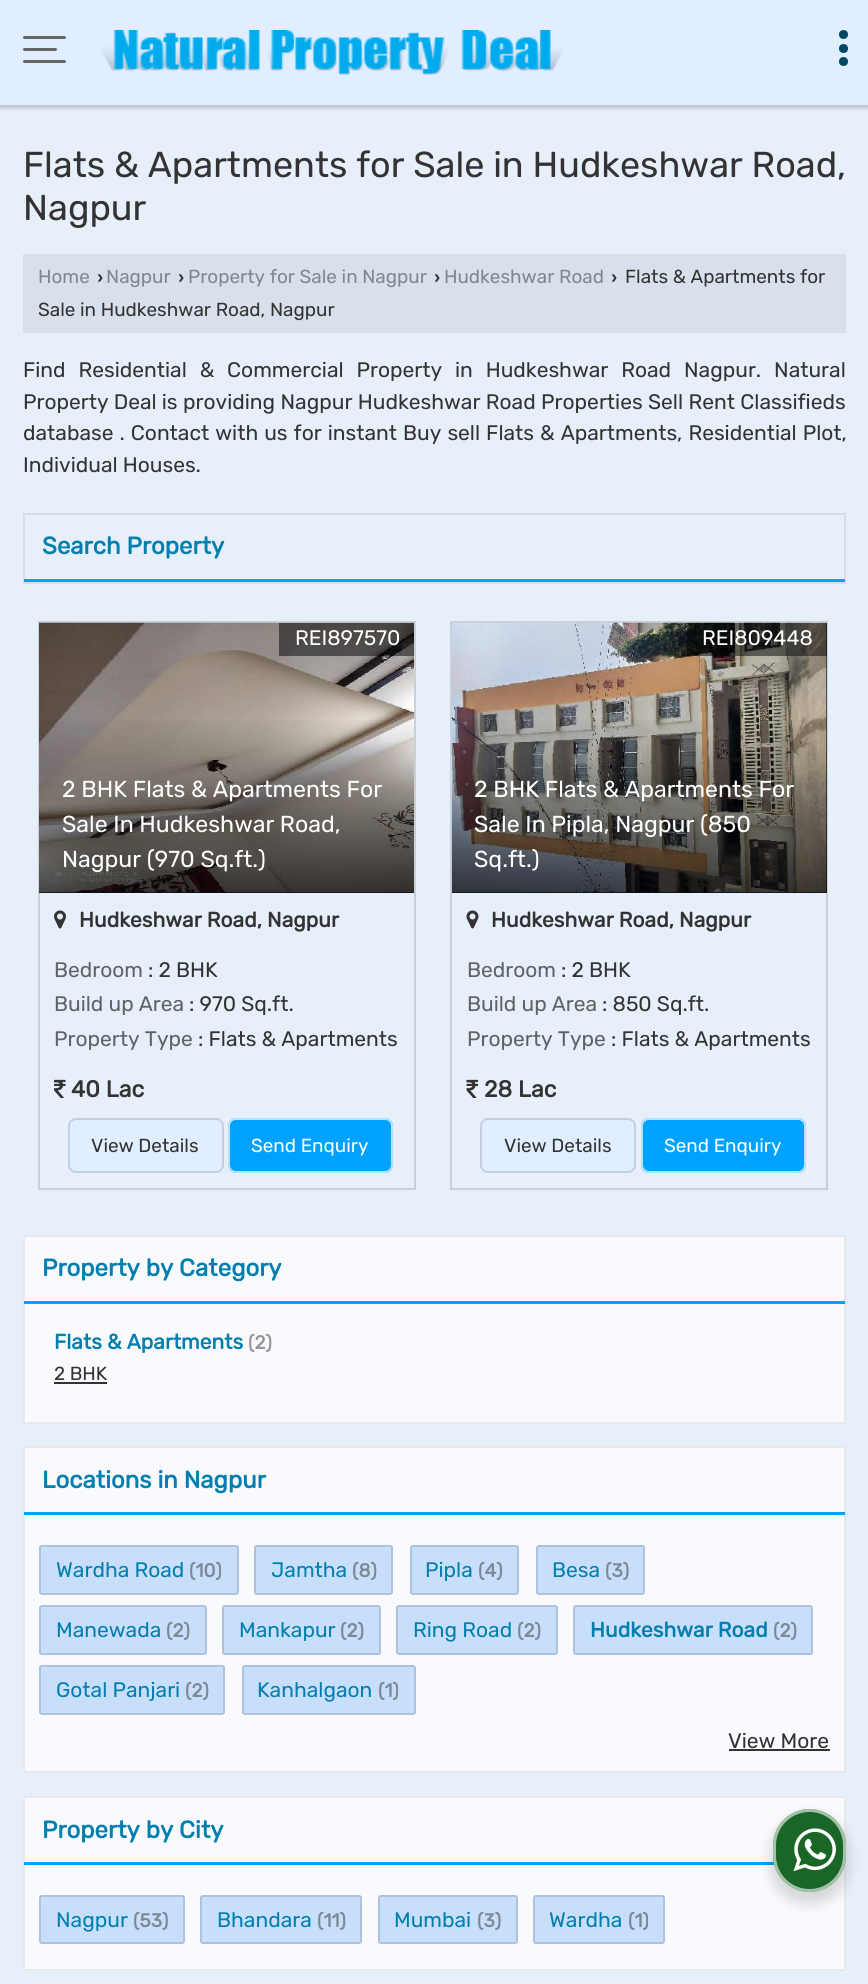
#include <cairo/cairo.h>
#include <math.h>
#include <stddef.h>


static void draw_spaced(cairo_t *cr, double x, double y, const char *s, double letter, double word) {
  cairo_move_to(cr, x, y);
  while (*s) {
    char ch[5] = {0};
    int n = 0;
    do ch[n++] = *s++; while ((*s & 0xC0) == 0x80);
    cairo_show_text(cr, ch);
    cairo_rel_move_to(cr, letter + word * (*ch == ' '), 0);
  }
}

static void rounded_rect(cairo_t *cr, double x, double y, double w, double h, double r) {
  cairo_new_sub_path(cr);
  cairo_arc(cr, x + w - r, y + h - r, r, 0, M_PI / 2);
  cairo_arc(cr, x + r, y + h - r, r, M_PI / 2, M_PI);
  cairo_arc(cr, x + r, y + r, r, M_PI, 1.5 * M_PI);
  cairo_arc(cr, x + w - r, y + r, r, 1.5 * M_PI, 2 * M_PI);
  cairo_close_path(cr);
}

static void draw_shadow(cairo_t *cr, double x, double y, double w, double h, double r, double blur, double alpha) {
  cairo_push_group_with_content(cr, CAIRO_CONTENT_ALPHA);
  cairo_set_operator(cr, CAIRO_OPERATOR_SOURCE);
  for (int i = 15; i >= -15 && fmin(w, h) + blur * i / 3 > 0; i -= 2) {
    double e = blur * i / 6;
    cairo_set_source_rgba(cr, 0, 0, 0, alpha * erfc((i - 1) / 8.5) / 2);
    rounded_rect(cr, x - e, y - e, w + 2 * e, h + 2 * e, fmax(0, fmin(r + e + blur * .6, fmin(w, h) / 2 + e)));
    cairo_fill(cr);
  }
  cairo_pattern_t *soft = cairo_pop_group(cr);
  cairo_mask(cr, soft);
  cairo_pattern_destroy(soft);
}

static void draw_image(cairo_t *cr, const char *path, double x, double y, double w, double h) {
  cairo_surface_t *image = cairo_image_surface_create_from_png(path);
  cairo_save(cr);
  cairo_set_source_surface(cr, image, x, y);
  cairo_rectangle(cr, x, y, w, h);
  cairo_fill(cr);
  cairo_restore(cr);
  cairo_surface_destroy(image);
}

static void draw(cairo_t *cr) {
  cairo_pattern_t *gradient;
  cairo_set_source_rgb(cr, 230 / 255.0, 239 / 255.0, 250 / 255.0);
  cairo_paint(cr);
  cairo_set_source_rgb(cr, 0, 0, 0);
  draw_shadow(cr, 0, 3, 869, 105, 0, 2, 0.2);
  cairo_set_source_rgb(cr, 224 / 255.0, 238 / 255.0, 1);
  cairo_rectangle(cr, 0, 0, 868, 105);
  cairo_fill(cr);
  cairo_set_source_rgb(cr, 102 / 255.0, 102 / 255.0, 102 / 255.0);
  rounded_rect(cr, 23, 36, 43, 3, 1.5);
  cairo_fill(cr);
  rounded_rect(cr, 23, 48, 34, 3, 1.5);
  cairo_fill(cr);
  rounded_rect(cr, 23, 60, 43, 3, 1.5);
  cairo_fill(cr);
  draw_image(cr, "images/1.png", 101, 30, 462, 45);
  cairo_set_source_rgb(cr, 0, 71 / 255.0, 102 / 255.0);
  cairo_arc(cr, 843.5, 48.5, 4.5, 0, 2 * M_PI);
  cairo_fill(cr);
  cairo_arc(cr, 843.5, 34.5, 4.5, 0, 2 * M_PI);
  cairo_fill(cr);
  cairo_arc(cr, 843.5, 61.5, 4.5, 0, 2 * M_PI);
  cairo_fill(cr);
  cairo_set_source_rgb(cr, 216 / 255.0, 225 / 255.0, 235 / 255.0);
  cairo_rectangle(cr, 23, 254, 823, 79);
  cairo_fill(cr);
  cairo_rectangle(cr, 24, 514, 821, 69);
  cairo_set_source_rgb(cr, 214 / 255.0, 222 / 255.0, 233 / 255.0);
  cairo_stroke(cr);
  cairo_set_source_rgb(cr, 0, 162 / 255.0, 1);
  cairo_rectangle(cr, 24, 579, 821, 3);
  cairo_fill(cr);
  cairo_rectangle(cr, 39, 622, 376, 567);
  cairo_set_source_rgb(cr, 200 / 255.0, 208 / 255.0, 218 / 255.0);
  cairo_stroke(cr);
  cairo_set_source_rgb(cr, 51 / 255.0, 51 / 255.0, 51 / 255.0);
  cairo_rectangle(cr, 39, 892, 375, 1);
  cairo_fill(cr);
  draw_image(cr, "images/2.png", 39, 622, 375, 271);
  cairo_set_source_rgba(cr, 0, 0, 0, 0.5);
  cairo_rectangle(cr, 279, 623, 135, 33);
  cairo_fill(cr);
  gradient = cairo_pattern_create_linear(227, 714, 227, 893);
  cairo_pattern_add_color_stop_rgba(gradient, 0, 0, 0, 0, 0);
  cairo_pattern_add_color_stop_rgba(gradient, 1, 0, 0, 0, 0.7);
  cairo_set_source(cr, gradient);
  cairo_pattern_destroy(gradient);
  cairo_rectangle(cr, 39, 720, 375, 173);
  cairo_fill(cr);
  draw_image(cr, "images/3.png", 54, 910, 12, 19);
  draw_image(cr, "images/4.png", 54, 1079, 12, 19);
  cairo_set_source_rgb(cr, 224 / 255.0, 238 / 255.0, 1);
  rounded_rect(cr, 68, 1118, 156, 55, 8);
  cairo_fill(cr);
  rounded_rect(cr, 69, 1119, 154, 53, 7);
  cairo_set_source_rgba(cr, 0, 0, 0, 0.13);
  cairo_stroke(cr);
  cairo_set_source_rgb(cr, 0, 162 / 255.0, 1);
  rounded_rect(cr, 228, 1118, 165, 55, 8);
  cairo_fill(cr);
  rounded_rect(cr, 229, 1119, 163, 53, 7);
  cairo_set_source_rgba(cr, 1, 1, 1, 0.7);
  cairo_stroke(cr);
  cairo_rectangle(cr, 451, 622, 376, 567);
  cairo_set_source_rgb(cr, 200 / 255.0, 208 / 255.0, 218 / 255.0);
  cairo_stroke(cr);
  cairo_set_source_rgb(cr, 51 / 255.0, 51 / 255.0, 51 / 255.0);
  cairo_rectangle(cr, 452, 623, 375, 270);
  cairo_fill(cr);
  draw_image(cr, "images/5.png", 451, 622, 376, 271);
  cairo_set_source_rgba(cr, 0, 0, 0, 0.5);
  cairo_rectangle(cr, 687, 623, 140, 33);
  cairo_fill(cr);
  gradient = cairo_pattern_create_linear(639, 714, 639, 893);
  cairo_pattern_add_color_stop_rgba(gradient, 0, 0, 0, 0, 0);
  cairo_pattern_add_color_stop_rgba(gradient, 1, 0, 0, 0, 0.7);
  cairo_set_source(cr, gradient);
  cairo_pattern_destroy(gradient);
  cairo_rectangle(cr, 452, 720, 375, 173);
  cairo_fill(cr);
  draw_image(cr, "images/6.png", 466, 910, 13, 19);
  draw_image(cr, "images/7.png", 466, 1079, 13, 19);
  cairo_set_source_rgb(cr, 224 / 255.0, 238 / 255.0, 1);
  rounded_rect(cr, 480, 1118, 156, 55, 8);
  cairo_fill(cr);
  rounded_rect(cr, 481, 1119, 154, 53, 7);
  cairo_set_source_rgba(cr, 0, 0, 0, 0.13);
  cairo_stroke(cr);
  cairo_set_source_rgb(cr, 0, 162 / 255.0, 1);
  rounded_rect(cr, 641, 1118, 165, 55, 8);
  cairo_fill(cr);
  rounded_rect(cr, 642, 1119, 163, 53, 7);
  cairo_set_source_rgba(cr, 1, 1, 1, 0.7);
  cairo_stroke(cr);
  cairo_set_source_rgb(cr, 248 / 255.0, 250 / 255.0, 253 / 255.0);
  cairo_rectangle(cr, 24, 1236, 821, 187);
  cairo_fill_preserve(cr);
  cairo_set_source_rgb(cr, 231 / 255.0, 233 / 255.0, 235 / 255.0);
  cairo_stroke(cr);
  cairo_set_source_rgb(cr, 0, 162 / 255.0, 1);
  cairo_rectangle(cr, 24, 1301, 821, 3);
  cairo_fill(cr);
  cairo_set_source_rgb(cr, 51 / 255.0, 51 / 255.0, 51 / 255.0);
  cairo_rectangle(cr, 54, 1382, 53, 2);
  cairo_fill(cr);
  cairo_set_source_rgb(cr, 248 / 255.0, 250 / 255.0, 253 / 255.0);
  cairo_rectangle(cr, 24, 1447, 821, 325);
  cairo_fill_preserve(cr);
  cairo_set_source_rgb(cr, 231 / 255.0, 233 / 255.0, 235 / 255.0);
  cairo_stroke(cr);
  cairo_set_source_rgb(cr, 0, 162 / 255.0, 1);
  cairo_rectangle(cr, 24, 1512, 821, 3);
  cairo_fill(cr);
  cairo_set_source_rgb(cr, 200 / 255.0, 223 / 255.0, 251 / 255.0);
  rounded_rect(cr, 39, 1545, 200, 50, 3);
  cairo_fill(cr);
  rounded_rect(cr, 40, 1546, 198, 48, 2);
  cairo_set_source_rgba(cr, 0, 0, 0, 0.13);
  cairo_stroke(cr);
  cairo_set_source_rgb(cr, 200 / 255.0, 223 / 255.0, 251 / 255.0);
  rounded_rect(cr, 254, 1545, 139, 50, 3);
  cairo_fill(cr);
  rounded_rect(cr, 255, 1546, 137, 48, 2);
  cairo_set_source_rgba(cr, 0, 0, 0, 0.13);
  cairo_stroke(cr);
  cairo_set_source_rgb(cr, 200 / 255.0, 223 / 255.0, 251 / 255.0);
  rounded_rect(cr, 410, 1545, 109, 50, 3);
  cairo_fill(cr);
  rounded_rect(cr, 411, 1546, 107, 48, 2);
  cairo_set_source_rgba(cr, 0, 0, 0, 0.13);
  cairo_stroke(cr);
  cairo_set_source_rgb(cr, 200 / 255.0, 223 / 255.0, 251 / 255.0);
  rounded_rect(cr, 536, 1545, 109, 50, 3);
  cairo_fill(cr);
  rounded_rect(cr, 537, 1546, 107, 48, 2);
  cairo_set_source_rgba(cr, 0, 0, 0, 0.13);
  cairo_stroke(cr);
  cairo_set_source_rgb(cr, 200 / 255.0, 223 / 255.0, 251 / 255.0);
  rounded_rect(cr, 39, 1605, 168, 50, 3);
  cairo_fill(cr);
  rounded_rect(cr, 40, 1606, 166, 48, 2);
  cairo_set_source_rgba(cr, 0, 0, 0, 0.13);
  cairo_stroke(cr);
  cairo_set_source_rgb(cr, 200 / 255.0, 223 / 255.0, 251 / 255.0);
  rounded_rect(cr, 222, 1605, 159, 50, 3);
  cairo_fill(cr);
  rounded_rect(cr, 223, 1606, 157, 48, 2);
  cairo_set_source_rgba(cr, 0, 0, 0, 0.13);
  cairo_stroke(cr);
  cairo_set_source_rgb(cr, 200 / 255.0, 223 / 255.0, 251 / 255.0);
  rounded_rect(cr, 396, 1605, 162, 50, 3);
  cairo_fill(cr);
  rounded_rect(cr, 397, 1606, 160, 48, 2);
  cairo_set_source_rgba(cr, 0, 0, 0, 0.13);
  cairo_stroke(cr);
  cairo_set_source_rgb(cr, 200 / 255.0, 223 / 255.0, 251 / 255.0);
  rounded_rect(cr, 573, 1605, 240, 50, 3);
  cairo_fill(cr);
  rounded_rect(cr, 574, 1606, 238, 48, 2);
  cairo_set_source_rgba(cr, 0, 0, 0, 0.13);
  cairo_stroke(cr);
  cairo_set_source_rgb(cr, 200 / 255.0, 223 / 255.0, 251 / 255.0);
  rounded_rect(cr, 39, 1665, 186, 50, 3);
  cairo_fill(cr);
  rounded_rect(cr, 40, 1666, 184, 48, 2);
  cairo_set_source_rgba(cr, 0, 0, 0, 0.13);
  cairo_stroke(cr);
  cairo_set_source_rgb(cr, 200 / 255.0, 223 / 255.0, 251 / 255.0);
  rounded_rect(cr, 242, 1665, 174, 50, 3);
  cairo_fill(cr);
  rounded_rect(cr, 243, 1666, 172, 48, 2);
  cairo_set_source_rgba(cr, 0, 0, 0, 0.13);
  cairo_stroke(cr);
  cairo_set_source_rgb(cr, 51 / 255.0, 51 / 255.0, 51 / 255.0);
  cairo_rectangle(cr, 729, 1749, 101, 2);
  cairo_fill(cr);
  cairo_set_source_rgb(cr, 248 / 255.0, 250 / 255.0, 253 / 255.0);
  cairo_rectangle(cr, 24, 1797, 821, 173);
  cairo_fill_preserve(cr);
  cairo_set_source_rgb(cr, 231 / 255.0, 233 / 255.0, 235 / 255.0);
  cairo_stroke(cr);
  cairo_set_source_rgb(cr, 0, 162 / 255.0, 1);
  cairo_rectangle(cr, 24, 1862, 821, 3);
  cairo_fill(cr);
  cairo_set_source_rgb(cr, 200 / 255.0, 223 / 255.0, 251 / 255.0);
  rounded_rect(cr, 39, 1895, 146, 49, 3);
  cairo_fill(cr);
  rounded_rect(cr, 40, 1896, 144, 47, 2);
  cairo_set_source_rgba(cr, 0, 0, 0, 0.13);
  cairo_stroke(cr);
  cairo_set_source_rgb(cr, 200 / 255.0, 223 / 255.0, 251 / 255.0);
  rounded_rect(cr, 200, 1895, 162, 49, 3);
  cairo_fill(cr);
  rounded_rect(cr, 201, 1896, 160, 47, 2);
  cairo_set_source_rgba(cr, 0, 0, 0, 0.13);
  cairo_stroke(cr);
  cairo_set_source_rgb(cr, 200 / 255.0, 223 / 255.0, 251 / 255.0);
  rounded_rect(cr, 378, 1895, 140, 49, 3);
  cairo_fill(cr);
  rounded_rect(cr, 379, 1896, 138, 47, 2);
  cairo_set_source_rgba(cr, 0, 0, 0, 0.13);
  cairo_stroke(cr);
  cairo_set_source_rgb(cr, 200 / 255.0, 223 / 255.0, 251 / 255.0);
  rounded_rect(cr, 533, 1895, 132, 49, 3);
  cairo_fill(cr);
  rounded_rect(cr, 534, 1896, 130, 47, 2);
  cairo_set_source_rgba(cr, 0, 0, 0, 0.13);
  cairo_stroke(cr);
  cairo_set_source_rgb(cr, 0, 0, 0);
  draw_shadow(cr, 770, 1815, 79, 89, 39.5, 6, 0.14);
  cairo_set_source_rgb(cr, 25 / 255.0, 102 / 255.0, 38 / 255.0);
  rounded_rect(cr, 773, 1809, 73, 83, 36.5);
  cairo_fill(cr);
  rounded_rect(cr, 774.5, 1810.5, 70, 80, 35);
  cairo_set_source_rgba(cr, 1, 1, 1, 0.6);
  cairo_set_line_width(cr, 3);
  cairo_stroke(cr);
  draw_image(cr, "images/8.png", 793, 1828, 43, 44);
  cairo_select_font_face(cr, "Rubik Light", CAIRO_FONT_SLANT_NORMAL, CAIRO_FONT_WEIGHT_NORMAL);
  cairo_set_font_size(cr, 36);
  cairo_set_source_rgb(cr, 51 / 255.0, 51 / 255.0, 51 / 255.0);
  cairo_move_to(cr, 23, 177);
  cairo_show_text(cr, "Flats & Apartments for Sale in Hudkeshwar Road,");
  cairo_move_to(cr, 23, 220);
  cairo_show_text(cr, "Nagpur");
  cairo_set_font_size(cr, 18.9);
  cairo_set_source_rgb(cr, 130 / 255.0, 135 / 255.0, 141 / 255.0);
  cairo_move_to(cr, 38, 283);
  cairo_show_text(cr, "Home");
  cairo_select_font_face(cr, "Liberation Sans", CAIRO_FONT_SLANT_NORMAL, CAIRO_FONT_WEIGHT_BOLD);
  cairo_set_source_rgb(cr, 51 / 255.0, 51 / 255.0, 51 / 255.0);
  cairo_move_to(cr, 97, 283);
  cairo_show_text(cr, "›");
  cairo_select_font_face(cr, "Rubik Light", CAIRO_FONT_SLANT_NORMAL, CAIRO_FONT_WEIGHT_NORMAL);
  cairo_set_source_rgb(cr, 130 / 255.0, 135 / 255.0, 141 / 255.0);
  cairo_move_to(cr, 106, 283);
  cairo_show_text(cr, "Nagpur");
  cairo_select_font_face(cr, "Liberation Sans", CAIRO_FONT_SLANT_NORMAL, CAIRO_FONT_WEIGHT_BOLD);
  cairo_set_source_rgb(cr, 51 / 255.0, 51 / 255.0, 51 / 255.0);
  cairo_move_to(cr, 178, 283);
  cairo_show_text(cr, "›");
  cairo_select_font_face(cr, "Rubik Light", CAIRO_FONT_SLANT_NORMAL, CAIRO_FONT_WEIGHT_NORMAL);
  cairo_set_source_rgb(cr, 130 / 255.0, 135 / 255.0, 141 / 255.0);
  cairo_move_to(cr, 188, 283);
  cairo_show_text(cr, "Property for Sale in Nagpur");
  cairo_select_font_face(cr, "Liberation Sans", CAIRO_FONT_SLANT_NORMAL, CAIRO_FONT_WEIGHT_BOLD);
  cairo_set_source_rgb(cr, 51 / 255.0, 51 / 255.0, 51 / 255.0);
  cairo_move_to(cr, 434, 283);
  cairo_show_text(cr, "›");
  cairo_select_font_face(cr, "Rubik Light", CAIRO_FONT_SLANT_NORMAL, CAIRO_FONT_WEIGHT_NORMAL);
  cairo_set_source_rgb(cr, 130 / 255.0, 135 / 255.0, 141 / 255.0);
  cairo_move_to(cr, 444, 283);
  cairo_show_text(cr, "Hudkeshwar Road");
  cairo_select_font_face(cr, "Liberation Sans", CAIRO_FONT_SLANT_NORMAL, CAIRO_FONT_WEIGHT_BOLD);
  cairo_set_source_rgb(cr, 51 / 255.0, 51 / 255.0, 51 / 255.0);
  cairo_move_to(cr, 611, 283);
  cairo_show_text(cr, "›");
  cairo_select_font_face(cr, "Rubik Light", CAIRO_FONT_SLANT_NORMAL, CAIRO_FONT_WEIGHT_NORMAL);
  cairo_move_to(cr, 625, 283);
  cairo_show_text(cr, "Flats & Apartments for");
  cairo_move_to(cr, 38, 316);
  cairo_show_text(cr, "Sale in Hudkeshwar Road, Nagpur");
  cairo_set_font_size(cr, 21);
  draw_spaced(cr, 23, 377, "Find Residential & Commercial Property in Hudkeshwar Road Nagpur. Natural", 0, 7.75);
  cairo_move_to(cr, 23, 409);
  cairo_show_text(cr, "Property Deal is");
  draw_spaced(cr, 183, 409, "providing Nagpur Hudkeshwar Road Properties Sell Rent Classifieds", 0, 0.25);
  draw_spaced(cr, 23, 440, "database . Contact with us for instant Buy sell Flats & Apartments, Residential Plot,", 0, 0.9);
  cairo_move_to(cr, 23, 472);
  cairo_show_text(cr, "Individual Houses.");
  cairo_select_font_face(cr, "Rubik", CAIRO_FONT_SLANT_NORMAL, CAIRO_FONT_WEIGHT_BOLD);
  cairo_set_font_size(cr, 24);
  cairo_set_source_rgb(cr, 3 / 255.0, 127 / 255.0, 175 / 255.0);
  cairo_move_to(cr, 42, 554);
  cairo_show_text(cr, "Search Property");
  cairo_select_font_face(cr, "Rubik Light", CAIRO_FONT_SLANT_NORMAL, CAIRO_FONT_WEIGHT_NORMAL);
  cairo_set_font_size(cr, 21);
  cairo_set_source_rgb(cr, 1, 1, 1);
  cairo_move_to(cr, 295, 645);
  cairo_show_text(cr, "REI897570");
  cairo_set_font_size(cr, 23.1);
  cairo_move_to(cr, 62, 797);
  cairo_show_text(cr, "2 BHK Flats & Apartments For");
  cairo_move_to(cr, 62, 832);
  cairo_show_text(cr, "Sale In Hudkeshwar Road,");
  cairo_move_to(cr, 62, 867);
  cairo_show_text(cr, "Nagpur (970 Sq.ft.)");
  cairo_select_font_face(cr, "Rubik", CAIRO_FONT_SLANT_NORMAL, CAIRO_FONT_WEIGHT_BOLD);
  cairo_set_font_size(cr, 21);
  cairo_set_source_rgb(cr, 51 / 255.0, 51 / 255.0, 51 / 255.0);
  cairo_move_to(cr, 79, 927);
  cairo_show_text(cr, "Hudkeshwar Road, Nagpur");
  cairo_select_font_face(cr, "Rubik Light", CAIRO_FONT_SLANT_NORMAL, CAIRO_FONT_WEIGHT_NORMAL);
  cairo_set_source_rgb(cr, 96 / 255.0, 98 / 255.0, 101 / 255.0);
  cairo_move_to(cr, 54, 977);
  cairo_show_text(cr, "Bedroom");
  cairo_set_source_rgb(cr, 51 / 255.0, 51 / 255.0, 51 / 255.0);
  cairo_move_to(cr, 148, 977);
  cairo_show_text(cr, ": 2 BHK");
  cairo_set_source_rgb(cr, 96 / 255.0, 98 / 255.0, 101 / 255.0);
  cairo_move_to(cr, 54, 1011);
  cairo_show_text(cr, "Build up Area");
  cairo_set_source_rgb(cr, 51 / 255.0, 51 / 255.0, 51 / 255.0);
  cairo_move_to(cr, 189, 1011);
  cairo_show_text(cr, ": 970 Sq.ft.");
  cairo_set_source_rgb(cr, 96 / 255.0, 98 / 255.0, 101 / 255.0);
  cairo_move_to(cr, 54, 1046);
  cairo_show_text(cr, "Property Type");
  cairo_set_source_rgb(cr, 51 / 255.0, 51 / 255.0, 51 / 255.0);
  cairo_move_to(cr, 198, 1046);
  cairo_show_text(cr, ": Flats & Apartments");
  cairo_select_font_face(cr, "Rubik", CAIRO_FONT_SLANT_NORMAL, CAIRO_FONT_WEIGHT_BOLD);
  cairo_set_font_size(cr, 23.1);
  cairo_move_to(cr, 71, 1097);
  cairo_show_text(cr, "40 Lac");
  cairo_select_font_face(cr, "Rubik Light", CAIRO_FONT_SLANT_NORMAL, CAIRO_FONT_WEIGHT_NORMAL);
  cairo_set_font_size(cr, 18.9);
  cairo_move_to(cr, 91, 1152);
  cairo_show_text(cr, "View Details");
  cairo_set_source_rgb(cr, 1, 1, 1);
  cairo_move_to(cr, 251, 1152);
  cairo_show_text(cr, "Send Enquiry");
  cairo_set_font_size(cr, 21);
  cairo_move_to(cr, 702, 645);
  cairo_show_text(cr, "REI809448");
  cairo_set_font_size(cr, 23.1);
  cairo_move_to(cr, 474, 797);
  cairo_show_text(cr, "2 BHK Flats & Apartments For");
  cairo_move_to(cr, 474, 832);
  cairo_show_text(cr, "Sale In Pipla, Nagpur (850");
  cairo_move_to(cr, 474, 867);
  cairo_show_text(cr, "Sq.ft.)");
  cairo_select_font_face(cr, "Rubik", CAIRO_FONT_SLANT_NORMAL, CAIRO_FONT_WEIGHT_BOLD);
  cairo_set_font_size(cr, 21);
  cairo_set_source_rgb(cr, 51 / 255.0, 51 / 255.0, 51 / 255.0);
  cairo_move_to(cr, 491, 927);
  cairo_show_text(cr, "Hudkeshwar Road, Nagpur");
  cairo_select_font_face(cr, "Rubik Light", CAIRO_FONT_SLANT_NORMAL, CAIRO_FONT_WEIGHT_NORMAL);
  cairo_set_source_rgb(cr, 96 / 255.0, 98 / 255.0, 101 / 255.0);
  cairo_move_to(cr, 467, 977);
  cairo_show_text(cr, "Bedroom");
  cairo_set_source_rgb(cr, 51 / 255.0, 51 / 255.0, 51 / 255.0);
  cairo_move_to(cr, 561, 977);
  cairo_show_text(cr, ": 2 BHK");
  cairo_set_source_rgb(cr, 96 / 255.0, 98 / 255.0, 101 / 255.0);
  cairo_move_to(cr, 467, 1011);
  cairo_show_text(cr, "Build up Area");
  cairo_set_source_rgb(cr, 51 / 255.0, 51 / 255.0, 51 / 255.0);
  cairo_move_to(cr, 602, 1011);
  cairo_show_text(cr, ": 850 Sq.ft.");
  cairo_set_source_rgb(cr, 96 / 255.0, 98 / 255.0, 101 / 255.0);
  cairo_move_to(cr, 467, 1046);
  cairo_show_text(cr, "Property Type");
  cairo_set_source_rgb(cr, 51 / 255.0, 51 / 255.0, 51 / 255.0);
  cairo_move_to(cr, 611, 1046);
  cairo_show_text(cr, ": Flats & Apartments");
  cairo_select_font_face(cr, "Rubik", CAIRO_FONT_SLANT_NORMAL, CAIRO_FONT_WEIGHT_BOLD);
  cairo_set_font_size(cr, 23.1);
  cairo_move_to(cr, 484, 1097);
  cairo_show_text(cr, "28 Lac");
  cairo_select_font_face(cr, "Rubik Light", CAIRO_FONT_SLANT_NORMAL, CAIRO_FONT_WEIGHT_NORMAL);
  cairo_set_font_size(cr, 18.9);
  cairo_move_to(cr, 504, 1152);
  cairo_show_text(cr, "View Details");
  cairo_set_source_rgb(cr, 1, 1, 1);
  cairo_move_to(cr, 664, 1152);
  cairo_show_text(cr, "Send Enquiry");
  cairo_select_font_face(cr, "Rubik", CAIRO_FONT_SLANT_NORMAL, CAIRO_FONT_WEIGHT_BOLD);
  cairo_set_font_size(cr, 24);
  cairo_set_source_rgb(cr, 3 / 255.0, 127 / 255.0, 175 / 255.0);
  cairo_move_to(cr, 42, 1276);
  cairo_show_text(cr, "Property by Category");
  cairo_set_font_size(cr, 21);
  cairo_move_to(cr, 54, 1349);
  cairo_show_text(cr, "Flats & Apartments");
  cairo_set_font_size(cr, 18.9);
  cairo_set_source_rgb(cr, 150 / 255.0, 151 / 255.0, 152 / 255.0);
  cairo_move_to(cr, 248, 1349);
  cairo_show_text(cr, "(2)");
  cairo_select_font_face(cr, "Rubik Light", CAIRO_FONT_SLANT_NORMAL, CAIRO_FONT_WEIGHT_NORMAL);
  cairo_set_source_rgb(cr, 51 / 255.0, 51 / 255.0, 51 / 255.0);
  cairo_move_to(cr, 54, 1380);
  cairo_show_text(cr, "2 BHK");
  cairo_select_font_face(cr, "Rubik", CAIRO_FONT_SLANT_NORMAL, CAIRO_FONT_WEIGHT_BOLD);
  cairo_set_font_size(cr, 24);
  cairo_set_source_rgb(cr, 3 / 255.0, 127 / 255.0, 175 / 255.0);
  cairo_move_to(cr, 42, 1488);
  cairo_show_text(cr, "Locations in Nagpur");
  cairo_select_font_face(cr, "Rubik Light", CAIRO_FONT_SLANT_NORMAL, CAIRO_FONT_WEIGHT_NORMAL);
  cairo_set_font_size(cr, 21);
  cairo_move_to(cr, 56, 1577);
  cairo_show_text(cr, "Wardha Road");
  cairo_select_font_face(cr, "Rubik", CAIRO_FONT_SLANT_NORMAL, CAIRO_FONT_WEIGHT_BOLD);
  cairo_set_font_size(cr, 18.9);
  cairo_set_source_rgb(cr, 126 / 255.0, 137 / 255.0, 151 / 255.0);
  cairo_move_to(cr, 189, 1577);
  cairo_show_text(cr, "(10)");
  cairo_select_font_face(cr, "Rubik Light", CAIRO_FONT_SLANT_NORMAL, CAIRO_FONT_WEIGHT_NORMAL);
  cairo_set_font_size(cr, 21);
  cairo_set_source_rgb(cr, 3 / 255.0, 127 / 255.0, 175 / 255.0);
  cairo_move_to(cr, 271, 1577);
  cairo_show_text(cr, "Jamtha");
  cairo_select_font_face(cr, "Rubik", CAIRO_FONT_SLANT_NORMAL, CAIRO_FONT_WEIGHT_BOLD);
  cairo_set_font_size(cr, 18.9);
  cairo_set_source_rgb(cr, 126 / 255.0, 137 / 255.0, 151 / 255.0);
  cairo_move_to(cr, 352, 1577);
  cairo_show_text(cr, "(8)");
  cairo_select_font_face(cr, "Rubik Light", CAIRO_FONT_SLANT_NORMAL, CAIRO_FONT_WEIGHT_NORMAL);
  cairo_set_font_size(cr, 21);
  cairo_set_source_rgb(cr, 3 / 255.0, 127 / 255.0, 175 / 255.0);
  cairo_move_to(cr, 425, 1577);
  cairo_show_text(cr, "Pipla");
  cairo_select_font_face(cr, "Rubik", CAIRO_FONT_SLANT_NORMAL, CAIRO_FONT_WEIGHT_BOLD);
  cairo_set_font_size(cr, 18.9);
  cairo_set_source_rgb(cr, 126 / 255.0, 137 / 255.0, 151 / 255.0);
  cairo_move_to(cr, 478, 1577);
  cairo_show_text(cr, "(4)");
  cairo_select_font_face(cr, "Rubik Light", CAIRO_FONT_SLANT_NORMAL, CAIRO_FONT_WEIGHT_NORMAL);
  cairo_set_font_size(cr, 21);
  cairo_set_source_rgb(cr, 3 / 255.0, 127 / 255.0, 175 / 255.0);
  cairo_move_to(cr, 552, 1577);
  cairo_show_text(cr, "Besa");
  cairo_select_font_face(cr, "Rubik", CAIRO_FONT_SLANT_NORMAL, CAIRO_FONT_WEIGHT_BOLD);
  cairo_set_font_size(cr, 18.9);
  cairo_set_source_rgb(cr, 126 / 255.0, 137 / 255.0, 151 / 255.0);
  cairo_move_to(cr, 605, 1577);
  cairo_show_text(cr, "(3)");
  cairo_select_font_face(cr, "Rubik Light", CAIRO_FONT_SLANT_NORMAL, CAIRO_FONT_WEIGHT_NORMAL);
  cairo_set_font_size(cr, 21);
  cairo_set_source_rgb(cr, 3 / 255.0, 127 / 255.0, 175 / 255.0);
  cairo_move_to(cr, 56, 1637);
  cairo_show_text(cr, "Manewada");
  cairo_select_font_face(cr, "Rubik", CAIRO_FONT_SLANT_NORMAL, CAIRO_FONT_WEIGHT_BOLD);
  cairo_set_font_size(cr, 18.9);
  cairo_set_source_rgb(cr, 126 / 255.0, 137 / 255.0, 151 / 255.0);
  cairo_move_to(cr, 166, 1637);
  cairo_show_text(cr, "(2)");
  cairo_select_font_face(cr, "Rubik Light", CAIRO_FONT_SLANT_NORMAL, CAIRO_FONT_WEIGHT_NORMAL);
  cairo_set_font_size(cr, 21);
  cairo_set_source_rgb(cr, 3 / 255.0, 127 / 255.0, 175 / 255.0);
  cairo_move_to(cr, 239, 1637);
  cairo_show_text(cr, "Mankapur");
  cairo_select_font_face(cr, "Rubik", CAIRO_FONT_SLANT_NORMAL, CAIRO_FONT_WEIGHT_BOLD);
  cairo_set_font_size(cr, 18.9);
  cairo_set_source_rgb(cr, 126 / 255.0, 137 / 255.0, 151 / 255.0);
  cairo_move_to(cr, 340, 1637);
  cairo_show_text(cr, "(2)");
  cairo_select_font_face(cr, "Rubik Light", CAIRO_FONT_SLANT_NORMAL, CAIRO_FONT_WEIGHT_NORMAL);
  cairo_set_font_size(cr, 21);
  cairo_set_source_rgb(cr, 3 / 255.0, 127 / 255.0, 175 / 255.0);
  cairo_move_to(cr, 413, 1637);
  cairo_show_text(cr, "Ring Road");
  cairo_select_font_face(cr, "Rubik", CAIRO_FONT_SLANT_NORMAL, CAIRO_FONT_WEIGHT_BOLD);
  cairo_set_font_size(cr, 18.9);
  cairo_set_source_rgb(cr, 126 / 255.0, 137 / 255.0, 151 / 255.0);
  cairo_move_to(cr, 517, 1637);
  cairo_show_text(cr, "(2)");
  cairo_set_font_size(cr, 21);
  cairo_set_source_rgb(cr, 3 / 255.0, 127 / 255.0, 175 / 255.0);
  cairo_move_to(cr, 590, 1637);
  cairo_show_text(cr, "Hudkeshwar Road");
  cairo_set_font_size(cr, 18.9);
  cairo_set_source_rgb(cr, 126 / 255.0, 137 / 255.0, 151 / 255.0);
  cairo_move_to(cr, 773, 1637);
  cairo_show_text(cr, "(2)");
  cairo_select_font_face(cr, "Rubik Light", CAIRO_FONT_SLANT_NORMAL, CAIRO_FONT_WEIGHT_NORMAL);
  cairo_set_font_size(cr, 21);
  cairo_set_source_rgb(cr, 3 / 255.0, 127 / 255.0, 175 / 255.0);
  cairo_move_to(cr, 56, 1697);
  cairo_show_text(cr, "Gotal Panjari");
  cairo_select_font_face(cr, "Rubik", CAIRO_FONT_SLANT_NORMAL, CAIRO_FONT_WEIGHT_BOLD);
  cairo_set_font_size(cr, 18.9);
  cairo_set_source_rgb(cr, 126 / 255.0, 137 / 255.0, 151 / 255.0);
  cairo_move_to(cr, 185, 1697);
  cairo_show_text(cr, "(2)");
  cairo_select_font_face(cr, "Rubik Light", CAIRO_FONT_SLANT_NORMAL, CAIRO_FONT_WEIGHT_NORMAL);
  cairo_set_font_size(cr, 21);
  cairo_set_source_rgb(cr, 3 / 255.0, 127 / 255.0, 175 / 255.0);
  cairo_move_to(cr, 257, 1697);
  cairo_show_text(cr, "Kanhalgaon");
  cairo_select_font_face(cr, "Rubik", CAIRO_FONT_SLANT_NORMAL, CAIRO_FONT_WEIGHT_BOLD);
  cairo_set_font_size(cr, 18.9);
  cairo_set_source_rgb(cr, 126 / 255.0, 137 / 255.0, 151 / 255.0);
  cairo_move_to(cr, 378, 1697);
  cairo_show_text(cr, "(1)");
  cairo_select_font_face(cr, "Rubik Light", CAIRO_FONT_SLANT_NORMAL, CAIRO_FONT_WEIGHT_NORMAL);
  cairo_set_font_size(cr, 21);
  cairo_set_source_rgb(cr, 51 / 255.0, 51 / 255.0, 51 / 255.0);
  cairo_move_to(cr, 728, 1748);
  cairo_show_text(cr, "View More");
  cairo_select_font_face(cr, "Rubik", CAIRO_FONT_SLANT_NORMAL, CAIRO_FONT_WEIGHT_BOLD);
  cairo_set_font_size(cr, 24);
  cairo_set_source_rgb(cr, 3 / 255.0, 127 / 255.0, 175 / 255.0);
  cairo_move_to(cr, 42, 1838);
  cairo_show_text(cr, "Property by City");
  cairo_select_font_face(cr, "Rubik Light", CAIRO_FONT_SLANT_NORMAL, CAIRO_FONT_WEIGHT_NORMAL);
  cairo_set_font_size(cr, 21);
  cairo_move_to(cr, 56, 1927);
  cairo_show_text(cr, "Nagpur");
  cairo_select_font_face(cr, "Rubik", CAIRO_FONT_SLANT_NORMAL, CAIRO_FONT_WEIGHT_BOLD);
  cairo_set_font_size(cr, 18.9);
  cairo_set_source_rgb(cr, 126 / 255.0, 137 / 255.0, 151 / 255.0);
  cairo_move_to(cr, 133, 1927);
  cairo_show_text(cr, "(53)");
  cairo_select_font_face(cr, "Rubik Light", CAIRO_FONT_SLANT_NORMAL, CAIRO_FONT_WEIGHT_NORMAL);
  cairo_set_font_size(cr, 21);
  cairo_set_source_rgb(cr, 3 / 255.0, 127 / 255.0, 175 / 255.0);
  cairo_move_to(cr, 217, 1927);
  cairo_show_text(cr, "Bhandara");
  cairo_select_font_face(cr, "Rubik", CAIRO_FONT_SLANT_NORMAL, CAIRO_FONT_WEIGHT_BOLD);
  cairo_set_font_size(cr, 18.9);
  cairo_set_source_rgb(cr, 126 / 255.0, 137 / 255.0, 151 / 255.0);
  cairo_move_to(cr, 317, 1927);
  cairo_show_text(cr, "(11)");
  cairo_select_font_face(cr, "Rubik Light", CAIRO_FONT_SLANT_NORMAL, CAIRO_FONT_WEIGHT_NORMAL);
  cairo_set_font_size(cr, 21);
  cairo_set_source_rgb(cr, 3 / 255.0, 127 / 255.0, 175 / 255.0);
  cairo_move_to(cr, 394, 1927);
  cairo_show_text(cr, "Mumbai");
  cairo_select_font_face(cr, "Rubik", CAIRO_FONT_SLANT_NORMAL, CAIRO_FONT_WEIGHT_BOLD);
  cairo_set_font_size(cr, 18.9);
  cairo_set_source_rgb(cr, 126 / 255.0, 137 / 255.0, 151 / 255.0);
  cairo_move_to(cr, 477, 1927);
  cairo_show_text(cr, "(3)");
  cairo_select_font_face(cr, "Rubik Light", CAIRO_FONT_SLANT_NORMAL, CAIRO_FONT_WEIGHT_NORMAL);
  cairo_set_font_size(cr, 21);
  cairo_set_source_rgb(cr, 3 / 255.0, 127 / 255.0, 175 / 255.0);
  cairo_move_to(cr, 549, 1927);
  cairo_show_text(cr, "Wardha");
  cairo_select_font_face(cr, "Rubik", CAIRO_FONT_SLANT_NORMAL, CAIRO_FONT_WEIGHT_BOLD);
  cairo_set_font_size(cr, 18.9);
  cairo_set_source_rgb(cr, 126 / 255.0, 137 / 255.0, 151 / 255.0);
  cairo_move_to(cr, 628, 1927);
  cairo_show_text(cr, "(1)");
}

int main(void) {
  cairo_surface_t *surface = cairo_image_surface_create(CAIRO_FORMAT_RGB24, 868, 1984);
  cairo_t *cr = cairo_create(surface);
  cairo_font_options_t *options = cairo_font_options_create();
  cairo_font_options_set_hint_metrics(options, CAIRO_HINT_METRICS_OFF);
  cairo_font_options_set_hint_style(options, CAIRO_HINT_STYLE_NONE);
  cairo_set_font_options(cr, options);
  cairo_set_miter_limit(cr, 4);
  draw(cr);
  cairo_surface_write_to_png(surface, "out.png");
  cairo_font_options_destroy(options);
  cairo_destroy(cr);
  cairo_surface_destroy(surface);
  return 0;
}
